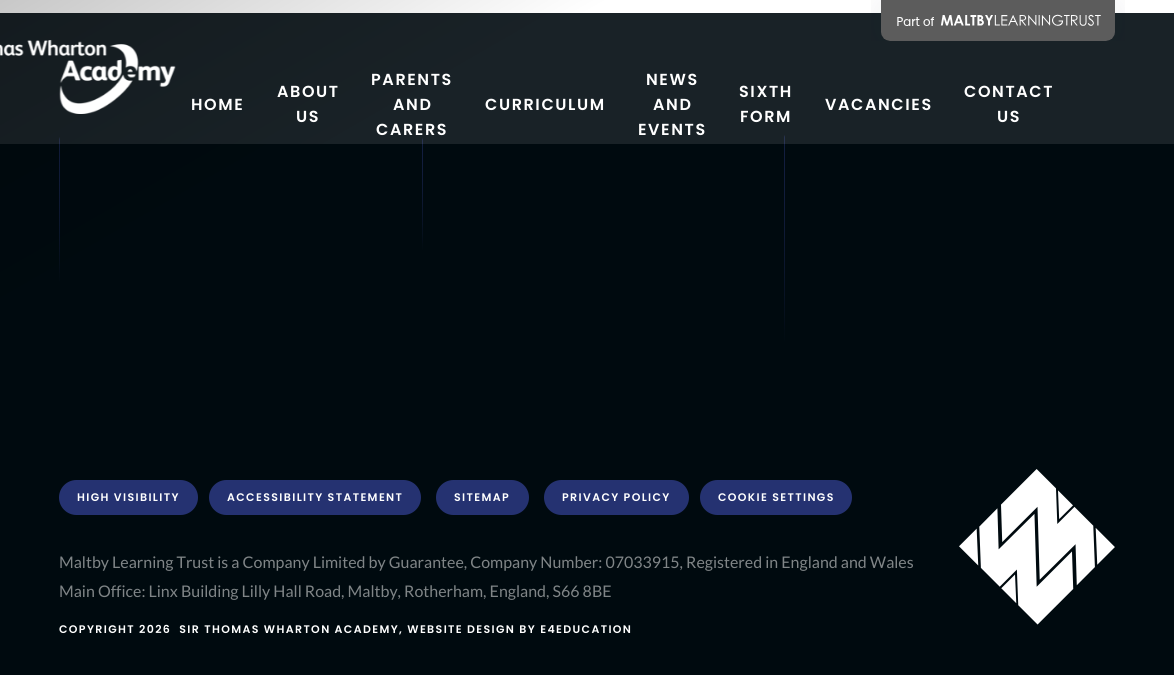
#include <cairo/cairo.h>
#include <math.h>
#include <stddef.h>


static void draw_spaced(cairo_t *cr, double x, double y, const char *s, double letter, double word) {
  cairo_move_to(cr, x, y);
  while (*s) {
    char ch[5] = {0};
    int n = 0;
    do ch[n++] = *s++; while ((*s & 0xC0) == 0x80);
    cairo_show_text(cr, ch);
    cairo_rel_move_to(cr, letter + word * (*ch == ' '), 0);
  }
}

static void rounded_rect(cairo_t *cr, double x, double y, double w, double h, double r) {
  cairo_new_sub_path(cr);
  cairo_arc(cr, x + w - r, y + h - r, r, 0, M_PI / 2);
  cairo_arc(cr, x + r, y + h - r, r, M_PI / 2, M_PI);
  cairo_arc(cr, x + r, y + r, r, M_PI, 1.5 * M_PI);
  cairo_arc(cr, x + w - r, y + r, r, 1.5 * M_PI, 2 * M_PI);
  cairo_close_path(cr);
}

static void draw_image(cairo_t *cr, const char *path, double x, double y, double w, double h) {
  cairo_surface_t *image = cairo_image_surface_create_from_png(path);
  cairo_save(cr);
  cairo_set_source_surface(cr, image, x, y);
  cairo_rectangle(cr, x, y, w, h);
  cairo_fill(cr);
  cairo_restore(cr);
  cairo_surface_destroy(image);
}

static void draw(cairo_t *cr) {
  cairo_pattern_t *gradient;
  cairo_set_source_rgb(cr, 1, 1, 1);
  cairo_paint(cr);
  cairo_set_source_rgb(cr, 0, 10 / 255.0, 15 / 255.0);
  cairo_rectangle(cr, 0, 13, 1174, 662);
  cairo_fill(cr);
  cairo_set_source_rgb(cr, 37 / 255.0, 50 / 255.0, 113 / 255.0);
  cairo_new_path(cr);
  cairo_move_to(cr, 60, 137);
  cairo_line_to(cr, 59, 141);
  cairo_line_to(cr, 59, 283);
  cairo_close_path(cr);
  cairo_fill(cr);
  cairo_set_source_rgba(cr, 0, 10 / 255.0, 15 / 255.0, 0.5);
  cairo_new_path(cr);
  cairo_move_to(cr, 60, 137);
  cairo_line_to(cr, 59, 141);
  cairo_line_to(cr, 59, 283);
  cairo_close_path(cr);
  cairo_fill(cr);
  cairo_set_source_rgb(cr, 37 / 255.0, 50 / 255.0, 113 / 255.0);
  cairo_new_path(cr);
  cairo_move_to(cr, 423, 138);
  cairo_line_to(cr, 422, 141);
  cairo_line_to(cr, 422, 251);
  cairo_close_path(cr);
  cairo_fill(cr);
  cairo_set_source_rgba(cr, 0, 10 / 255.0, 15 / 255.0, 0.5);
  cairo_new_path(cr);
  cairo_move_to(cr, 423, 138);
  cairo_line_to(cr, 422, 141);
  cairo_line_to(cr, 422, 251);
  cairo_close_path(cr);
  cairo_fill(cr);
  cairo_set_source_rgb(cr, 37 / 255.0, 50 / 255.0, 113 / 255.0);
  cairo_new_path(cr);
  cairo_move_to(cr, 785, 135);
  cairo_line_to(cr, 784, 138);
  cairo_line_to(cr, 784, 344);
  cairo_close_path(cr);
  cairo_fill(cr);
  cairo_set_source_rgba(cr, 0, 10 / 255.0, 15 / 255.0, 0.5);
  cairo_new_path(cr);
  cairo_move_to(cr, 785, 135);
  cairo_line_to(cr, 784, 138);
  cairo_line_to(cr, 784, 344);
  cairo_close_path(cr);
  cairo_fill(cr);
  cairo_set_source_rgba(cr, 1, 1, 1, 0.1);
  cairo_rectangle(cr, 0, 13, 1174, 131);
  cairo_fill(cr);
  gradient = cairo_pattern_create_linear(129, -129, 305, 176);
  cairo_pattern_add_color_stop_rgba(gradient, 0, 0, 0, 0, 0.25);
  cairo_pattern_add_color_stop_rgba(gradient, 1, 0, 0, 0, 0);
  cairo_set_source(cr, gradient);
  cairo_pattern_destroy(gradient);
  cairo_new_path(cr);
  cairo_move_to(cr, -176, 47);
  cairo_line_to(cr, 434, -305);
  cairo_line_to(cr, 610, 0);
  cairo_line_to(cr, 0, 352);
  cairo_close_path(cr);
  cairo_fill(cr);
  draw_image(cr, "images/1.png", 871, 0, 254, 41);
  draw_image(cr, "images/2.png", 0, 40, 176, 74);
  cairo_set_source_rgb(cr, 37 / 255.0, 50 / 255.0, 113 / 255.0);
  rounded_rect(cr, 59, 480, 139, 35, 17.5);
  cairo_fill(cr);
  rounded_rect(cr, 209, 480, 212, 35, 17.5);
  cairo_fill(cr);
  rounded_rect(cr, 436, 480, 93, 35, 17.5);
  cairo_fill(cr);
  rounded_rect(cr, 544, 480, 145, 35, 17.5);
  cairo_fill(cr);
  rounded_rect(cr, 700, 480, 152, 35, 17.5);
  cairo_fill(cr);
  draw_image(cr, "images/3.png", 959, 469, 156, 156);
  cairo_select_font_face(cr, "Poppins SemiBold", CAIRO_FONT_SLANT_NORMAL, CAIRO_FONT_WEIGHT_NORMAL);
  cairo_set_font_size(cr, 16);
  cairo_set_source_rgb(cr, 1, 1, 1);
  draw_spaced(cr, 191, 110, "HOME", 1.6, 0);
  draw_spaced(cr, 277, 97, "ABOUT", 1.6, 0);
  draw_spaced(cr, 296, 122, "US", 1.6, 0);
  draw_spaced(cr, 371, 85, "PARENTS", 1.6, 0);
  draw_spaced(cr, 393, 110, "AND", 1.6, 0);
  draw_spaced(cr, 376, 135, "CARERS", 1.6, 0);
  draw_spaced(cr, 485, 110, "CURRICULUM", 1.6, 0);
  draw_spaced(cr, 646, 85, "NEWS", 1.6, 0);
  draw_spaced(cr, 653, 110, "AND", 1.6, 0);
  draw_spaced(cr, 638, 135, "EVENTS", 1.6, 0);
  draw_spaced(cr, 739, 97, "SIXTH", 1.6, 0);
  draw_spaced(cr, 740, 122, "FORM", 1.6, 0);
  draw_spaced(cr, 825, 110, "VACANCIES", 1.6, 0);
  draw_spaced(cr, 964, 97, "CONTACT", 1.6, 0);
  draw_spaced(cr, 997, 122, "US", 1.6, 0);
  cairo_set_font_size(cr, 11);
  draw_spaced(cr, 77, 501, "HIGH VISIBILITY", 1.38, 0);
  draw_spaced(cr, 227, 501, "ACCESSIBILITY STATEMENT", 1.38, 0);
  draw_spaced(cr, 454, 501, "SITEMAP", 1.38, 0);
  draw_spaced(cr, 562, 501, "PRIVACY POLICY", 1.38, 0);
  draw_spaced(cr, 718, 501, "COOKIE SETTINGS", 1.38, 0);
  cairo_select_font_face(cr, "Lato", CAIRO_FONT_SLANT_NORMAL, CAIRO_FONT_WEIGHT_NORMAL);
  cairo_set_font_size(cr, 16);
  cairo_set_source_rgb(cr, 128 / 255.0, 133 / 255.0, 135 / 255.0);
  cairo_move_to(cr, 59, 568);
  cairo_show_text(cr, "Maltby Learning Trust is a Company Limited by Guarantee, Company Number: 07033915, Registered in England and Wales");
  cairo_move_to(cr, 59, 597);
  cairo_show_text(cr, "Main Office: Linx Building Lilly Hall Road, Maltby, Rotherham, England, S66 8BE");
  cairo_select_font_face(cr, "Poppins SemiBold", CAIRO_FONT_SLANT_NORMAL, CAIRO_FONT_WEIGHT_NORMAL);
  cairo_set_font_size(cr, 11);
  cairo_set_source_rgb(cr, 1, 1, 1);
  draw_spaced(cr, 59, 633, "COPYRIGHT 2026  SIR THOMAS WHARTON ACADEMY, WEBSITE DESIGN BY E4EDUCATION", 1.38, 0);
}

int main(void) {
  cairo_surface_t *surface = cairo_image_surface_create(CAIRO_FORMAT_RGB24, 1174, 675);
  cairo_t *cr = cairo_create(surface);
  cairo_font_options_t *options = cairo_font_options_create();
  cairo_font_options_set_hint_metrics(options, CAIRO_HINT_METRICS_OFF);
  cairo_font_options_set_hint_style(options, CAIRO_HINT_STYLE_NONE);
  cairo_set_font_options(cr, options);
  cairo_set_miter_limit(cr, 4);
  draw(cr);
  cairo_surface_write_to_png(surface, "out.png");
  cairo_font_options_destroy(options);
  cairo_destroy(cr);
  cairo_surface_destroy(surface);
  return 0;
}
